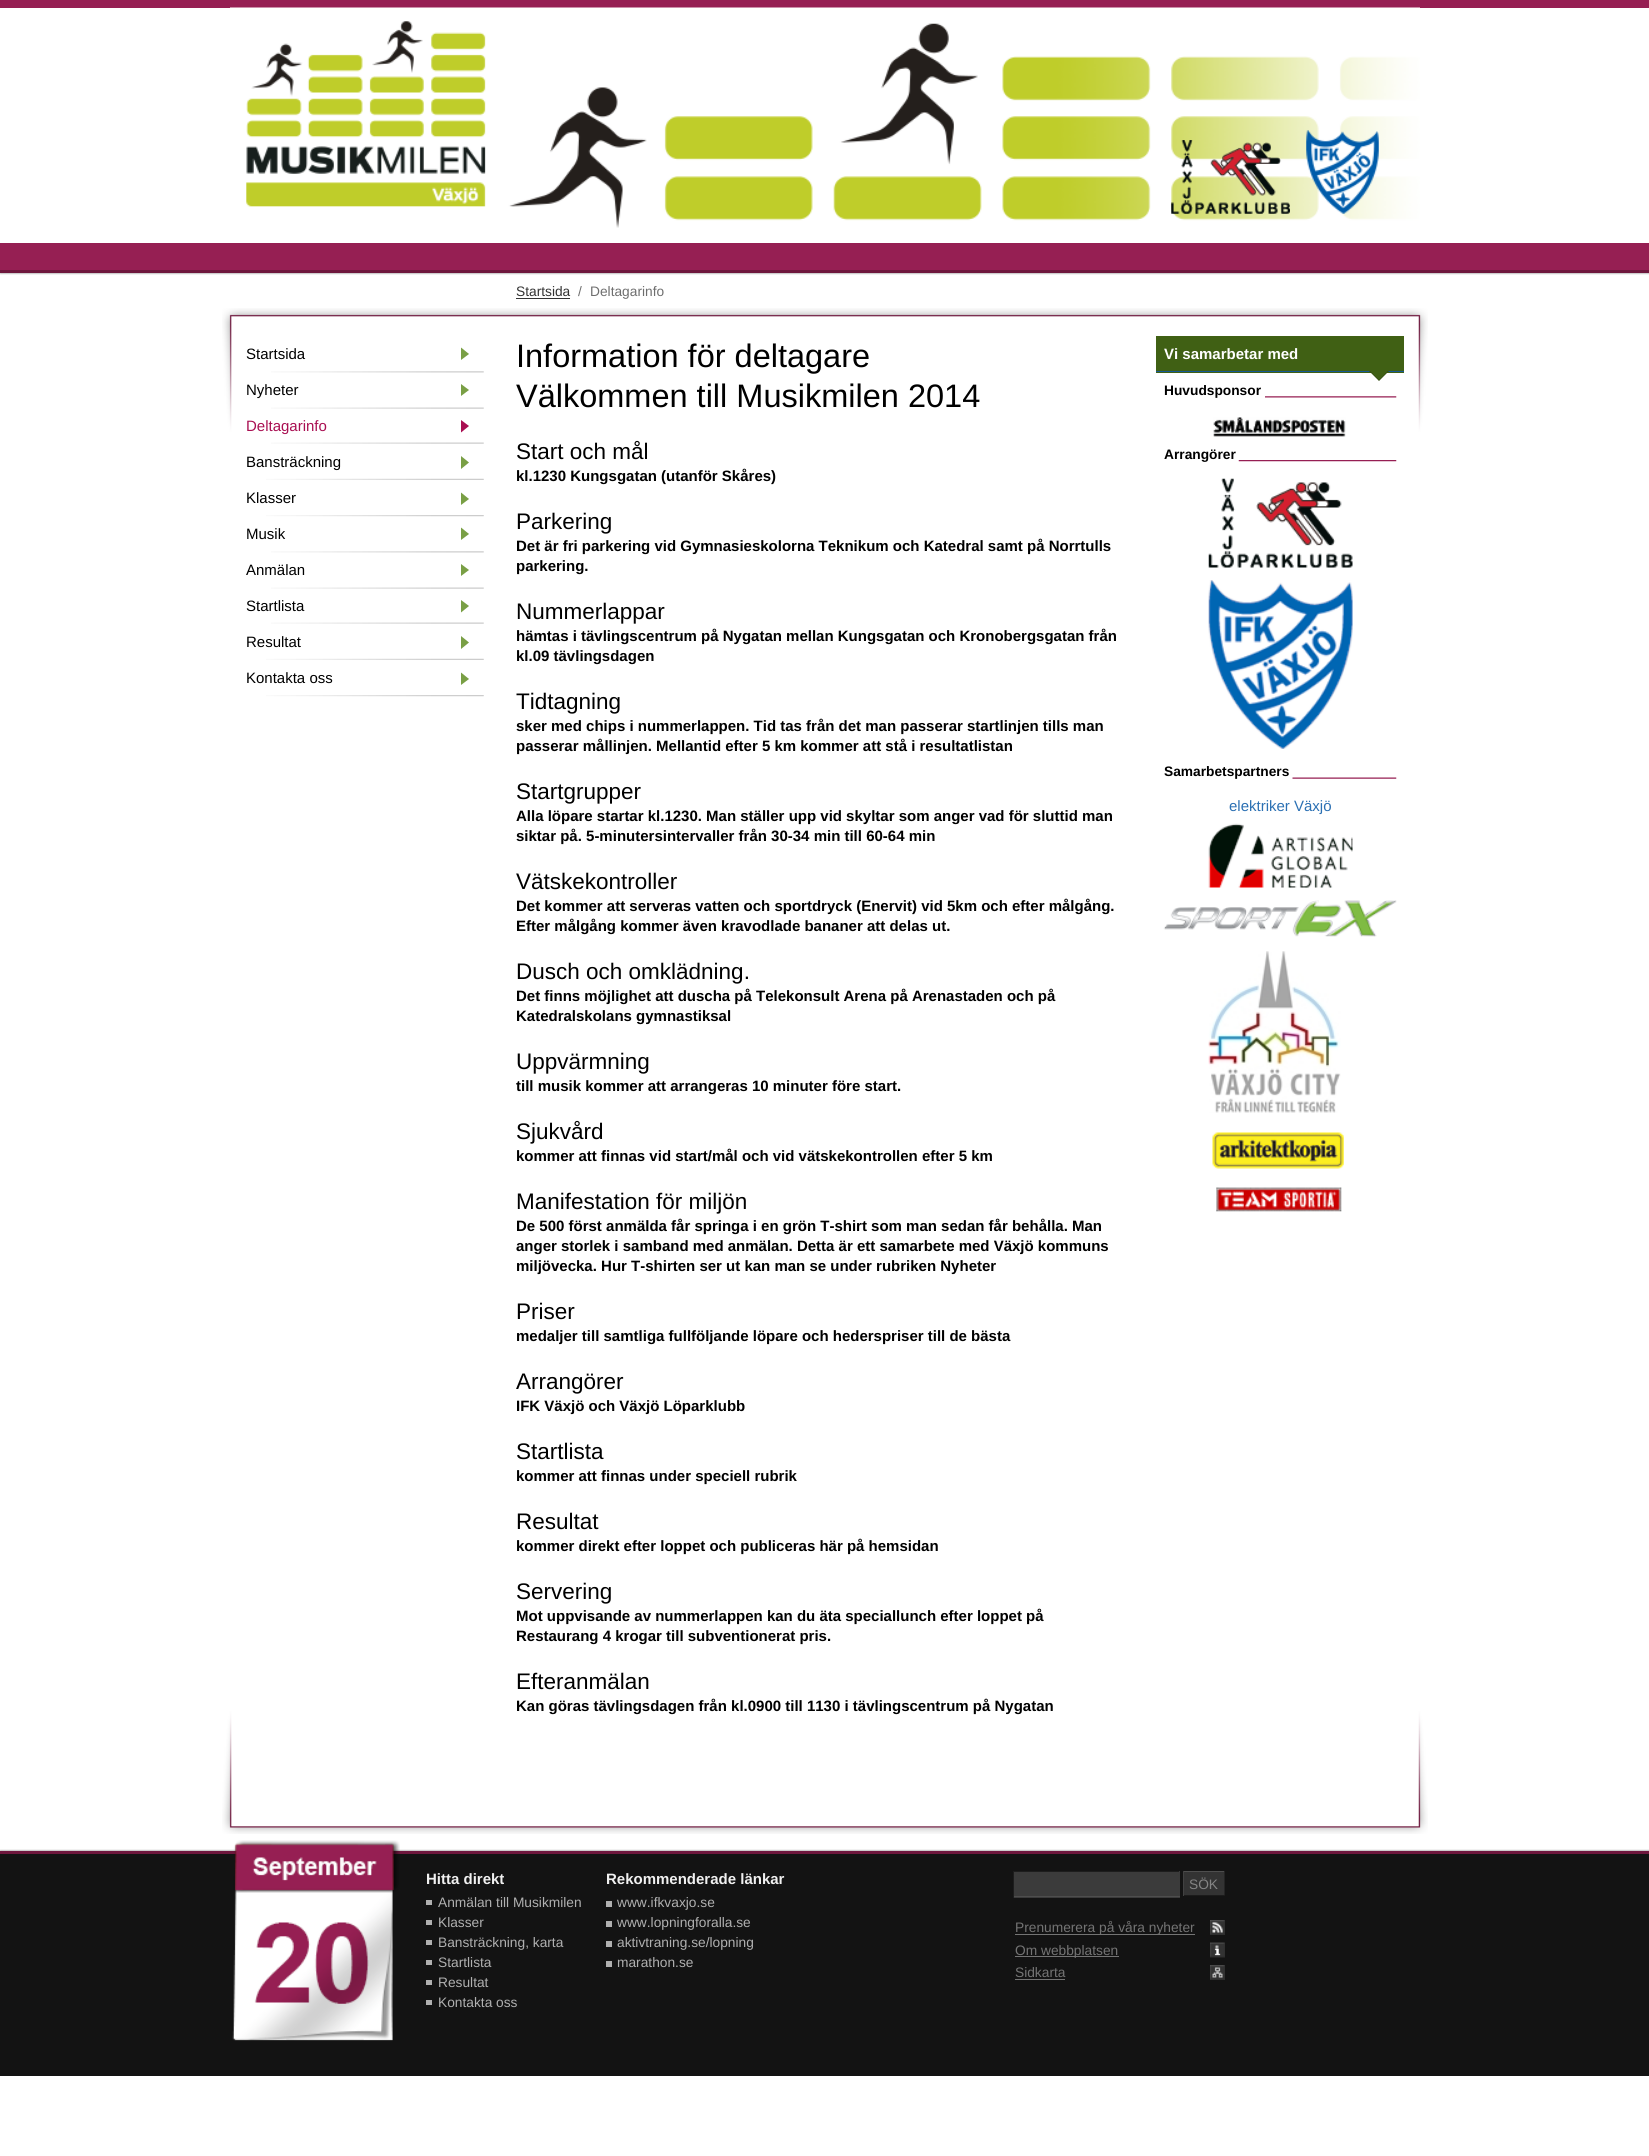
#include <cairo/cairo.h>
#include <math.h>
#include <stddef.h>


static void rounded_rect(cairo_t *cr, double x, double y, double w, double h, double r) {
  cairo_new_sub_path(cr);
  cairo_arc(cr, x + w - r, y + h - r, r, 0, M_PI / 2);
  cairo_arc(cr, x + r, y + h - r, r, M_PI / 2, M_PI);
  cairo_arc(cr, x + r, y + r, r, M_PI, 1.5 * M_PI);
  cairo_arc(cr, x + w - r, y + r, r, 1.5 * M_PI, 2 * M_PI);
  cairo_close_path(cr);
}

static void draw_shadow(cairo_t *cr, double x, double y, double w, double h, double r, double blur, double alpha) {
  cairo_push_group_with_content(cr, CAIRO_CONTENT_ALPHA);
  cairo_set_operator(cr, CAIRO_OPERATOR_SOURCE);
  for (int i = 15; i >= -15 && fmin(w, h) + blur * i / 3 > 0; i -= 2) {
    double e = blur * i / 6;
    cairo_set_source_rgba(cr, 0, 0, 0, alpha * erfc((i - 1) / 8.5) / 2);
    rounded_rect(cr, x - e, y - e, w + 2 * e, h + 2 * e, fmax(0, fmin(r + e + blur * .6, fmin(w, h) / 2 + e)));
    cairo_fill(cr);
  }
  cairo_pattern_t *soft = cairo_pop_group(cr);
  cairo_mask(cr, soft);
  cairo_pattern_destroy(soft);
}

static void draw_image(cairo_t *cr, const char *path, double x, double y, double w, double h) {
  cairo_surface_t *image = cairo_image_surface_create_from_png(path);
  cairo_save(cr);
  cairo_set_source_surface(cr, image, x, y);
  cairo_rectangle(cr, x, y, w, h);
  cairo_fill(cr);
  cairo_restore(cr);
  cairo_surface_destroy(image);
}

static void draw(cairo_t *cr) {
  cairo_set_source_rgb(cr, 1, 1, 1);
  cairo_paint(cr);
  cairo_set_source_rgb(cr, 198 / 255.0, 198 / 255.0, 198 / 255.0);
  draw_shadow(cr, 0, 1, 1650, 273, 0, 0.5, 1);
  cairo_set_source_rgb(cr, 1, 1, 1);
  cairo_rectangle(cr, 0, 8, 1649, 235);
  cairo_fill(cr);
  cairo_set_source_rgb(cr, 150 / 255.0, 31 / 255.0, 83 / 255.0);
  cairo_rectangle(cr, 0, 0, 1649, 8);
  cairo_fill(cr);
  cairo_rectangle(cr, 0, 243, 1649, 27);
  cairo_fill(cr);
  draw_image(cr, "images/1.png", 230, 7, 1190, 221);
  draw_image(cr, "images/2.png", 1171, 140, 119, 74);
  draw_image(cr, "images/3.png", 1306, 130, 73, 84);
  cairo_set_source_rgb(cr, 110 / 255.0, 23 / 255.0, 61 / 255.0);
  cairo_rectangle(cr, 0, 270, 1649, 3);
  cairo_fill(cr);
  cairo_set_source_rgb(cr, 51 / 255.0, 51 / 255.0, 51 / 255.0);
  cairo_rectangle(cr, 516, 298, 54, 1);
  cairo_fill(cr);
  draw_image(cr, "images/4.png", 222, 308, 1206, 1526);
  draw_image(cr, "images/5.png", 271, 371, 213, 2);
  cairo_set_source_rgb(cr, 121 / 255.0, 159 / 255.0, 69 / 255.0);
  cairo_new_path(cr);
  cairo_move_to(cr, 461, 360);
  cairo_line_to(cr, 461, 347.5);
  cairo_line_to(cr, 469, 354);
  cairo_close_path(cr);
  cairo_move_to(cr, 461, 396);
  cairo_line_to(cr, 461, 384);
  cairo_line_to(cr, 469, 390);
  cairo_close_path(cr);
  cairo_fill(cr);
  draw_image(cr, "images/6.png", 271, 407, 213, 2);
  draw_image(cr, "images/6.png", 271, 442, 213, 2);
  cairo_set_source_rgb(cr, 169 / 255.0, 15 / 255.0, 82 / 255.0);
  cairo_new_path(cr);
  cairo_move_to(cr, 461, 432.5);
  cairo_line_to(cr, 461, 420);
  cairo_line_to(cr, 469, 426);
  cairo_close_path(cr);
  cairo_fill(cr);
  draw_image(cr, "images/7.png", 266, 478, 218, 2);
  cairo_set_source_rgb(cr, 121 / 255.0, 159 / 255.0, 69 / 255.0);
  cairo_new_path(cr);
  cairo_move_to(cr, 461, 469);
  cairo_line_to(cr, 461, 456);
  cairo_line_to(cr, 469, 462.5);
  cairo_close_path(cr);
  cairo_move_to(cr, 461, 505);
  cairo_line_to(cr, 461, 492.5);
  cairo_line_to(cr, 469, 499);
  cairo_close_path(cr);
  cairo_fill(cr);
  draw_image(cr, "images/8.png", 266, 515, 218, 2);
  draw_image(cr, "images/5.png", 271, 551, 213, 2);
  cairo_new_path(cr);
  cairo_move_to(cr, 461, 540);
  cairo_line_to(cr, 461, 527.5);
  cairo_line_to(cr, 469, 534);
  cairo_close_path(cr);
  cairo_move_to(cr, 461, 576);
  cairo_line_to(cr, 461, 564);
  cairo_line_to(cr, 469, 570);
  cairo_close_path(cr);
  cairo_fill(cr);
  draw_image(cr, "images/6.png", 271, 587, 213, 2);
  draw_image(cr, "images/6.png", 271, 622, 213, 2);
  cairo_new_path(cr);
  cairo_move_to(cr, 461, 612.5);
  cairo_line_to(cr, 461, 600);
  cairo_line_to(cr, 469, 606);
  cairo_close_path(cr);
  cairo_move_to(cr, 461, 649);
  cairo_line_to(cr, 461, 636);
  cairo_line_to(cr, 469, 642.5);
  cairo_close_path(cr);
  cairo_fill(cr);
  draw_image(cr, "images/7.png", 266, 658, 218, 2);
  draw_image(cr, "images/8.png", 266, 695, 218, 2);
  cairo_new_path(cr);
  cairo_move_to(cr, 461, 685);
  cairo_line_to(cr, 461, 672.5);
  cairo_line_to(cr, 469, 679);
  cairo_close_path(cr);
  cairo_fill(cr);
  cairo_set_source_rgb(cr, 64 / 255.0, 96 / 255.0, 20 / 255.0);
  cairo_rectangle(cr, 1156, 336, 248, 37);
  cairo_fill(cr);
  cairo_set_source_rgb(cr, 23 / 255.0, 89 / 255.0, 150 / 255.0);
  cairo_rectangle(cr, 1156, 371, 248, 1);
  cairo_fill(cr);
  cairo_set_source_rgb(cr, 50 / 255.0, 75 / 255.0, 16 / 255.0);
  cairo_new_path(cr);
  cairo_move_to(cr, 1369, 371);
  cairo_line_to(cr, 1389, 371);
  cairo_line_to(cr, 1379, 381);
  cairo_close_path(cr);
  cairo_fill(cr);
  cairo_set_source_rgb(cr, 64 / 255.0, 96 / 255.0, 20 / 255.0);
  cairo_new_path(cr);
  cairo_move_to(cr, 1369, 370);
  cairo_line_to(cr, 1389, 370);
  cairo_line_to(cr, 1379, 380);
  cairo_close_path(cr);
  cairo_fill(cr);
  draw_image(cr, "images/9.png", 1265, 396, 132, 2);
  draw_image(cr, "images/10.png", 1213, 417, 133, 20);
  draw_image(cr, "images/11.png", 1238, 460, 159, 2);
  draw_image(cr, "images/12.png", 1208, 478, 145, 90);
  draw_image(cr, "images/13.png", 1208, 580, 145, 169);
  draw_image(cr, "images/14.png", 1292, 777, 105, 2);
  draw_image(cr, "images/15.png", 1208, 823, 145, 65);
  draw_image(cr, "images/16.png", 1163, 900, 234, 37);
  draw_image(cr, "images/17.png", 1208, 951, 133, 162);
  draw_image(cr, "images/18.png", 1212, 1132, 132, 37);
  draw_image(cr, "images/19.png", 1216, 1187, 126, 25);
  cairo_set_source_rgb(cr, 198 / 255.0, 198 / 255.0, 198 / 255.0);
  draw_shadow(cr, 0, 1850, 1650, 225, 0, 0.5, 1);
  cairo_set_source_rgb(cr, 19 / 255.0, 19 / 255.0, 19 / 255.0);
  cairo_rectangle(cr, 0, 1854, 1649, 222);
  cairo_fill(cr);
  cairo_set_source_rgb(cr, 110 / 255.0, 23 / 255.0, 61 / 255.0);
  cairo_rectangle(cr, 0, 1851, 1649, 3);
  cairo_fill(cr);
  draw_image(cr, "images/20.png", 232, 1840, 168, 201);
  cairo_set_source_rgb(cr, 176 / 255.0, 176 / 255.0, 176 / 255.0);
  cairo_rectangle(cr, 426, 1900, 6, 5);
  cairo_fill(cr);
  cairo_rectangle(cr, 426, 1920, 6, 5);
  cairo_fill(cr);
  cairo_rectangle(cr, 426, 1940, 6, 5);
  cairo_fill(cr);
  cairo_rectangle(cr, 426, 1960, 6, 5);
  cairo_fill(cr);
  cairo_rectangle(cr, 426, 1980, 6, 5);
  cairo_fill(cr);
  cairo_rectangle(cr, 426, 2000, 6, 5);
  cairo_fill(cr);
  cairo_rectangle(cr, 606, 1901, 6, 6);
  cairo_fill(cr);
  cairo_rectangle(cr, 606, 1921, 6, 6);
  cairo_fill(cr);
  cairo_rectangle(cr, 606, 1941, 6, 6);
  cairo_fill(cr);
  cairo_rectangle(cr, 606, 1961, 6, 6);
  cairo_fill(cr);
  cairo_set_source_rgb(cr, 59 / 255.0, 59 / 255.0, 59 / 255.0);
  cairo_rectangle(cr, 1014, 1872, 165, 26);
  cairo_fill(cr);
  cairo_set_source_rgb(cr, 29 / 255.0, 29 / 255.0, 29 / 255.0);
  cairo_rectangle(cr, 1013, 1871, 167, 1);
  cairo_fill(cr);
  cairo_set_source_rgb(cr, 59 / 255.0, 59 / 255.0, 59 / 255.0);
  cairo_rectangle(cr, 1179, 1871, 1, 27);
  cairo_fill(cr);
  cairo_set_source_rgb(cr, 78 / 255.0, 78 / 255.0, 78 / 255.0);
  cairo_rectangle(cr, 1013, 1896, 167, 1);
  cairo_fill(cr);
  cairo_set_source_rgb(cr, 29 / 255.0, 29 / 255.0, 29 / 255.0);
  cairo_rectangle(cr, 1013, 1871, 1, 27);
  cairo_fill(cr);
  cairo_set_source_rgb(cr, 51 / 255.0, 51 / 255.0, 51 / 255.0);
  cairo_rectangle(cr, 1184, 1872, 40, 23);
  cairo_fill(cr);
  cairo_set_source_rgb(cr, 78 / 255.0, 78 / 255.0, 78 / 255.0);
  cairo_rectangle(cr, 1183, 1871, 42, 1);
  cairo_fill(cr);
  cairo_set_source_rgb(cr, 36 / 255.0, 36 / 255.0, 36 / 255.0);
  cairo_rectangle(cr, 1224, 1871, 1, 25);
  cairo_fill(cr);
  cairo_set_source_rgb(cr, 27 / 255.0, 27 / 255.0, 27 / 255.0);
  cairo_rectangle(cr, 1183, 1895, 42, 1);
  cairo_fill(cr);
  cairo_set_source_rgb(cr, 65 / 255.0, 65 / 255.0, 65 / 255.0);
  cairo_rectangle(cr, 1183, 1871, 1, 25);
  cairo_fill(cr);
  draw_image(cr, "images/21.png", 1210, 1920, 15, 15);
  cairo_set_source_rgb(cr, 116 / 255.0, 116 / 255.0, 116 / 255.0);
  cairo_rectangle(cr, 1015, 1934, 180, 1);
  cairo_fill(cr);
  draw_image(cr, "images/22.png", 1210, 1942, 15, 16);
  cairo_rectangle(cr, 1015, 1956, 104, 1);
  cairo_fill(cr);
  draw_image(cr, "images/23.png", 1210, 1965, 15, 15);
  cairo_rectangle(cr, 1015, 1979, 50, 1);
  cairo_fill(cr);
  cairo_select_font_face(cr, "Liberation Sans", CAIRO_FONT_SLANT_NORMAL, CAIRO_FONT_WEIGHT_NORMAL);
  cairo_set_font_size(cr, 13.75);
  cairo_set_source_rgb(cr, 51 / 255.0, 51 / 255.0, 51 / 255.0);
  cairo_move_to(cr, 516, 296);
  cairo_show_text(cr, "Startsida");
  cairo_set_source_rgb(cr, 110 / 255.0, 110 / 255.0, 110 / 255.0);
  cairo_move_to(cr, 578, 296);
  cairo_show_text(cr, "/");
  cairo_move_to(cr, 590, 296);
  cairo_show_text(cr, "Deltagarinfo");
  cairo_set_font_size(cr, 15);
  cairo_set_source_rgb(cr, 0, 0, 0);
  cairo_move_to(cr, 246, 359);
  cairo_show_text(cr, "Startsida");
  cairo_move_to(cr, 246, 395);
  cairo_show_text(cr, "Nyheter");
  cairo_set_source_rgb(cr, 169 / 255.0, 15 / 255.0, 82 / 255.0);
  cairo_move_to(cr, 246, 431);
  cairo_show_text(cr, "Deltagarinfo");
  cairo_set_source_rgb(cr, 0, 0, 0);
  cairo_move_to(cr, 246, 467);
  cairo_show_text(cr, "Bansträckning");
  cairo_move_to(cr, 246, 503);
  cairo_show_text(cr, "Klasser");
  cairo_move_to(cr, 246, 539);
  cairo_show_text(cr, "Musik");
  cairo_move_to(cr, 246, 575);
  cairo_show_text(cr, "Anmälan");
  cairo_move_to(cr, 246, 611);
  cairo_show_text(cr, "Startlista");
  cairo_move_to(cr, 246, 647);
  cairo_show_text(cr, "Resultat");
  cairo_move_to(cr, 246, 683);
  cairo_show_text(cr, "Kontakta oss");
  cairo_set_font_size(cr, 32.5);
  cairo_move_to(cr, 516, 367);
  cairo_show_text(cr, "Information för deltagare");
  cairo_move_to(cr, 516, 407);
  cairo_show_text(cr, "Välkommen till Musikmilen 2014");
  cairo_set_font_size(cr, 22.5);
  cairo_move_to(cr, 516, 459);
  cairo_show_text(cr, "Start och mål");
  cairo_select_font_face(cr, "Liberation Sans", CAIRO_FONT_SLANT_NORMAL, CAIRO_FONT_WEIGHT_BOLD);
  cairo_set_font_size(cr, 15);
  cairo_move_to(cr, 516, 481);
  cairo_show_text(cr, "kl.1230 Kungsgatan (utanför Skåres)");
  cairo_select_font_face(cr, "Liberation Sans", CAIRO_FONT_SLANT_NORMAL, CAIRO_FONT_WEIGHT_NORMAL);
  cairo_set_font_size(cr, 22.5);
  cairo_move_to(cr, 516, 529);
  cairo_show_text(cr, "Parkering");
  cairo_select_font_face(cr, "Liberation Sans", CAIRO_FONT_SLANT_NORMAL, CAIRO_FONT_WEIGHT_BOLD);
  cairo_set_font_size(cr, 15);
  cairo_move_to(cr, 516, 551);
  cairo_show_text(cr, "Det är fri parkering vid Gymnasieskolorna Teknikum och Katedral samt på Norrtulls");
  cairo_move_to(cr, 516, 571);
  cairo_show_text(cr, "parkering.");
  cairo_select_font_face(cr, "Liberation Sans", CAIRO_FONT_SLANT_NORMAL, CAIRO_FONT_WEIGHT_NORMAL);
  cairo_set_font_size(cr, 22.5);
  cairo_move_to(cr, 516, 619);
  cairo_show_text(cr, "Nummerlappar");
  cairo_select_font_face(cr, "Liberation Sans", CAIRO_FONT_SLANT_NORMAL, CAIRO_FONT_WEIGHT_BOLD);
  cairo_set_font_size(cr, 15);
  cairo_move_to(cr, 516, 641);
  cairo_show_text(cr, "hämtas i tävlingscentrum på Nygatan mellan Kungsgatan och Kronobergsgatan från");
  cairo_move_to(cr, 516, 661);
  cairo_show_text(cr, "kl.09 tävlingsdagen");
  cairo_select_font_face(cr, "Liberation Sans", CAIRO_FONT_SLANT_NORMAL, CAIRO_FONT_WEIGHT_NORMAL);
  cairo_set_font_size(cr, 22.5);
  cairo_move_to(cr, 516, 709);
  cairo_show_text(cr, "Tidtagning");
  cairo_select_font_face(cr, "Liberation Sans", CAIRO_FONT_SLANT_NORMAL, CAIRO_FONT_WEIGHT_BOLD);
  cairo_set_font_size(cr, 15);
  cairo_move_to(cr, 516, 731);
  cairo_show_text(cr, "sker med chips i nummerlappen. Tid tas från det man passerar startlinjen tills man");
  cairo_move_to(cr, 516, 751);
  cairo_show_text(cr, "passerar mållinjen. Mellantid efter 5 km kommer att stå i resultatlistan");
  cairo_select_font_face(cr, "Liberation Sans", CAIRO_FONT_SLANT_NORMAL, CAIRO_FONT_WEIGHT_NORMAL);
  cairo_set_font_size(cr, 22.5);
  cairo_move_to(cr, 516, 799);
  cairo_show_text(cr, "Startgrupper");
  cairo_select_font_face(cr, "Liberation Sans", CAIRO_FONT_SLANT_NORMAL, CAIRO_FONT_WEIGHT_BOLD);
  cairo_set_font_size(cr, 15);
  cairo_move_to(cr, 516, 821);
  cairo_show_text(cr, "Alla löpare startar kl.1230. Man ställer upp vid skyltar som anger vad för sluttid man");
  cairo_move_to(cr, 516, 841);
  cairo_show_text(cr, "siktar på. 5-minutersintervaller från 30-34 min till 60-64 min");
  cairo_select_font_face(cr, "Liberation Sans", CAIRO_FONT_SLANT_NORMAL, CAIRO_FONT_WEIGHT_NORMAL);
  cairo_set_font_size(cr, 22.5);
  cairo_move_to(cr, 516, 889);
  cairo_show_text(cr, "Vätskekontroller");
  cairo_select_font_face(cr, "Liberation Sans", CAIRO_FONT_SLANT_NORMAL, CAIRO_FONT_WEIGHT_BOLD);
  cairo_set_font_size(cr, 15);
  cairo_move_to(cr, 516, 911);
  cairo_show_text(cr, "Det kommer att serveras vatten och sportdryck (Enervit) vid 5km och efter målgång.");
  cairo_move_to(cr, 516, 931);
  cairo_show_text(cr, "Efter målgång kommer även kravodlade bananer att delas ut.");
  cairo_select_font_face(cr, "Liberation Sans", CAIRO_FONT_SLANT_NORMAL, CAIRO_FONT_WEIGHT_NORMAL);
  cairo_set_font_size(cr, 22.5);
  cairo_move_to(cr, 516, 979);
  cairo_show_text(cr, "Dusch och omklädning.");
  cairo_select_font_face(cr, "Liberation Sans", CAIRO_FONT_SLANT_NORMAL, CAIRO_FONT_WEIGHT_BOLD);
  cairo_set_font_size(cr, 15);
  cairo_move_to(cr, 516, 1001);
  cairo_show_text(cr, "Det finns möjlighet att duscha på Telekonsult Arena på Arenastaden och på");
  cairo_move_to(cr, 516, 1021);
  cairo_show_text(cr, "Katedralskolans gymnastiksal");
  cairo_select_font_face(cr, "Liberation Sans", CAIRO_FONT_SLANT_NORMAL, CAIRO_FONT_WEIGHT_NORMAL);
  cairo_set_font_size(cr, 22.5);
  cairo_move_to(cr, 516, 1069);
  cairo_show_text(cr, "Uppvärmning");
  cairo_select_font_face(cr, "Liberation Sans", CAIRO_FONT_SLANT_NORMAL, CAIRO_FONT_WEIGHT_BOLD);
  cairo_set_font_size(cr, 15);
  cairo_move_to(cr, 516, 1091);
  cairo_show_text(cr, "till musik kommer att arrangeras 10 minuter före start.");
  cairo_select_font_face(cr, "Liberation Sans", CAIRO_FONT_SLANT_NORMAL, CAIRO_FONT_WEIGHT_NORMAL);
  cairo_set_font_size(cr, 22.5);
  cairo_move_to(cr, 516, 1139);
  cairo_show_text(cr, "Sjukvård");
  cairo_select_font_face(cr, "Liberation Sans", CAIRO_FONT_SLANT_NORMAL, CAIRO_FONT_WEIGHT_BOLD);
  cairo_set_font_size(cr, 15);
  cairo_move_to(cr, 516, 1161);
  cairo_show_text(cr, "kommer att finnas vid start/mål och vid vätskekontrollen efter 5 km");
  cairo_select_font_face(cr, "Liberation Sans", CAIRO_FONT_SLANT_NORMAL, CAIRO_FONT_WEIGHT_NORMAL);
  cairo_set_font_size(cr, 22.5);
  cairo_move_to(cr, 516, 1209);
  cairo_show_text(cr, "Manifestation för miljön");
  cairo_select_font_face(cr, "Liberation Sans", CAIRO_FONT_SLANT_NORMAL, CAIRO_FONT_WEIGHT_BOLD);
  cairo_set_font_size(cr, 15);
  cairo_move_to(cr, 516, 1231);
  cairo_show_text(cr, "De 500 först anmälda får springa i en grön T-shirt som man sedan får behålla. Man");
  cairo_move_to(cr, 516, 1251);
  cairo_show_text(cr, "anger storlek i samband med anmälan. Detta är ett samarbete med Växjö kommuns");
  cairo_move_to(cr, 516, 1271);
  cairo_show_text(cr, "miljövecka. Hur T-shirten ser ut kan man se under rubriken Nyheter");
  cairo_select_font_face(cr, "Liberation Sans", CAIRO_FONT_SLANT_NORMAL, CAIRO_FONT_WEIGHT_NORMAL);
  cairo_set_font_size(cr, 22.5);
  cairo_move_to(cr, 516, 1319);
  cairo_show_text(cr, "Priser");
  cairo_select_font_face(cr, "Liberation Sans", CAIRO_FONT_SLANT_NORMAL, CAIRO_FONT_WEIGHT_BOLD);
  cairo_set_font_size(cr, 15);
  cairo_move_to(cr, 516, 1341);
  cairo_show_text(cr, "medaljer till samtliga fullföljande löpare och hederspriser till de bästa");
  cairo_select_font_face(cr, "Liberation Sans", CAIRO_FONT_SLANT_NORMAL, CAIRO_FONT_WEIGHT_NORMAL);
  cairo_set_font_size(cr, 22.5);
  cairo_move_to(cr, 516, 1389);
  cairo_show_text(cr, "Arrangörer");
  cairo_select_font_face(cr, "Liberation Sans", CAIRO_FONT_SLANT_NORMAL, CAIRO_FONT_WEIGHT_BOLD);
  cairo_set_font_size(cr, 15);
  cairo_move_to(cr, 516, 1411);
  cairo_show_text(cr, "IFK Växjö och Växjö Löparklubb");
  cairo_select_font_face(cr, "Liberation Sans", CAIRO_FONT_SLANT_NORMAL, CAIRO_FONT_WEIGHT_NORMAL);
  cairo_set_font_size(cr, 22.5);
  cairo_move_to(cr, 516, 1459);
  cairo_show_text(cr, "Startlista");
  cairo_select_font_face(cr, "Liberation Sans", CAIRO_FONT_SLANT_NORMAL, CAIRO_FONT_WEIGHT_BOLD);
  cairo_set_font_size(cr, 15);
  cairo_move_to(cr, 516, 1481);
  cairo_show_text(cr, "kommer att finnas under speciell rubrik");
  cairo_select_font_face(cr, "Liberation Sans", CAIRO_FONT_SLANT_NORMAL, CAIRO_FONT_WEIGHT_NORMAL);
  cairo_set_font_size(cr, 22.5);
  cairo_move_to(cr, 516, 1529);
  cairo_show_text(cr, "Resultat");
  cairo_select_font_face(cr, "Liberation Sans", CAIRO_FONT_SLANT_NORMAL, CAIRO_FONT_WEIGHT_BOLD);
  cairo_set_font_size(cr, 15);
  cairo_move_to(cr, 516, 1551);
  cairo_show_text(cr, "kommer direkt efter loppet och publiceras här på hemsidan");
  cairo_select_font_face(cr, "Liberation Sans", CAIRO_FONT_SLANT_NORMAL, CAIRO_FONT_WEIGHT_NORMAL);
  cairo_set_font_size(cr, 22.5);
  cairo_move_to(cr, 516, 1599);
  cairo_show_text(cr, "Servering");
  cairo_select_font_face(cr, "Liberation Sans", CAIRO_FONT_SLANT_NORMAL, CAIRO_FONT_WEIGHT_BOLD);
  cairo_set_font_size(cr, 15);
  cairo_move_to(cr, 516, 1621);
  cairo_show_text(cr, "Mot uppvisande av nummerlappen kan du äta speciallunch efter loppet på");
  cairo_move_to(cr, 516, 1641);
  cairo_show_text(cr, "Restaurang 4 krogar till subventionerat pris.");
  cairo_select_font_face(cr, "Liberation Sans", CAIRO_FONT_SLANT_NORMAL, CAIRO_FONT_WEIGHT_NORMAL);
  cairo_set_font_size(cr, 22.5);
  cairo_move_to(cr, 516, 1689);
  cairo_show_text(cr, "Efteranmälan");
  cairo_select_font_face(cr, "Liberation Sans", CAIRO_FONT_SLANT_NORMAL, CAIRO_FONT_WEIGHT_BOLD);
  cairo_set_font_size(cr, 15);
  cairo_move_to(cr, 516, 1711);
  cairo_show_text(cr, "Kan göras tävlingsdagen från kl.0900 till 1130 i tävlingscentrum på Nygatan");
  cairo_set_source_rgb(cr, 1, 1, 1);
  cairo_move_to(cr, 1164, 359);
  cairo_show_text(cr, "Vi samarbetar med");
  cairo_set_font_size(cr, 13.75);
  cairo_set_source_rgb(cr, 0, 0, 0);
  cairo_move_to(cr, 1164, 395);
  cairo_show_text(cr, "Huvudsponsor");
  cairo_move_to(cr, 1164, 459);
  cairo_show_text(cr, "Arrangörer");
  cairo_move_to(cr, 1164, 776);
  cairo_show_text(cr, "Samarbetspartners");
  cairo_select_font_face(cr, "Liberation Sans", CAIRO_FONT_SLANT_NORMAL, CAIRO_FONT_WEIGHT_NORMAL);
  cairo_set_font_size(cr, 15);
  cairo_set_source_rgb(cr, 43 / 255.0, 112 / 255.0, 179 / 255.0);
  cairo_move_to(cr, 1229, 811);
  cairo_show_text(cr, "elektriker Växjö");
  cairo_select_font_face(cr, "Liberation Sans", CAIRO_FONT_SLANT_NORMAL, CAIRO_FONT_WEIGHT_BOLD);
  cairo_set_source_rgb(cr, 240 / 255.0, 240 / 255.0, 240 / 255.0);
  cairo_move_to(cr, 426, 1884);
  cairo_show_text(cr, "Hitta direkt");
  cairo_select_font_face(cr, "Liberation Sans", CAIRO_FONT_SLANT_NORMAL, CAIRO_FONT_WEIGHT_NORMAL);
  cairo_set_font_size(cr, 13.75);
  cairo_set_source_rgb(cr, 176 / 255.0, 176 / 255.0, 176 / 255.0);
  cairo_move_to(cr, 438, 1907);
  cairo_show_text(cr, "Anmälan till Musikmilen");
  cairo_move_to(cr, 438, 1927);
  cairo_show_text(cr, "Klasser");
  cairo_move_to(cr, 438, 1947);
  cairo_show_text(cr, "Bansträckning, karta");
  cairo_move_to(cr, 438, 1967);
  cairo_show_text(cr, "Startlista");
  cairo_move_to(cr, 438, 1987);
  cairo_show_text(cr, "Resultat");
  cairo_move_to(cr, 438, 2007);
  cairo_show_text(cr, "Kontakta oss");
  cairo_select_font_face(cr, "Liberation Sans", CAIRO_FONT_SLANT_NORMAL, CAIRO_FONT_WEIGHT_BOLD);
  cairo_set_font_size(cr, 15);
  cairo_set_source_rgb(cr, 240 / 255.0, 240 / 255.0, 240 / 255.0);
  cairo_move_to(cr, 606, 1884);
  cairo_show_text(cr, "Rekommenderade länkar");
  cairo_select_font_face(cr, "Liberation Sans", CAIRO_FONT_SLANT_NORMAL, CAIRO_FONT_WEIGHT_NORMAL);
  cairo_set_font_size(cr, 13.75);
  cairo_set_source_rgb(cr, 176 / 255.0, 176 / 255.0, 176 / 255.0);
  cairo_move_to(cr, 617, 1907);
  cairo_show_text(cr, "www.ifkvaxjo.se");
  cairo_move_to(cr, 617, 1927);
  cairo_show_text(cr, "www.lopningforalla.se");
  cairo_move_to(cr, 617, 1947);
  cairo_show_text(cr, "aktivtraning.se/lopning");
  cairo_move_to(cr, 617, 1967);
  cairo_show_text(cr, "marathon.se");
  cairo_set_source_rgb(cr, 132 / 255.0, 132 / 255.0, 132 / 255.0);
  cairo_move_to(cr, 1189, 1889);
  cairo_show_text(cr, "SÖK");
  cairo_set_source_rgb(cr, 116 / 255.0, 116 / 255.0, 116 / 255.0);
  cairo_move_to(cr, 1015, 1932);
  cairo_show_text(cr, "Prenumerera på våra nyheter");
  cairo_move_to(cr, 1015, 1955);
  cairo_show_text(cr, "Om webbplatsen");
  cairo_move_to(cr, 1015, 1977);
  cairo_show_text(cr, "Sidkarta");
}

int main(void) {
  cairo_surface_t *surface = cairo_image_surface_create(CAIRO_FORMAT_RGB24, 1649, 2156);
  cairo_t *cr = cairo_create(surface);
  cairo_font_options_t *options = cairo_font_options_create();
  cairo_font_options_set_hint_metrics(options, CAIRO_HINT_METRICS_OFF);
  cairo_font_options_set_hint_style(options, CAIRO_HINT_STYLE_NONE);
  cairo_set_font_options(cr, options);
  cairo_set_miter_limit(cr, 4);
  draw(cr);
  cairo_surface_write_to_png(surface, "out.png");
  cairo_font_options_destroy(options);
  cairo_destroy(cr);
  cairo_surface_destroy(surface);
  return 0;
}
